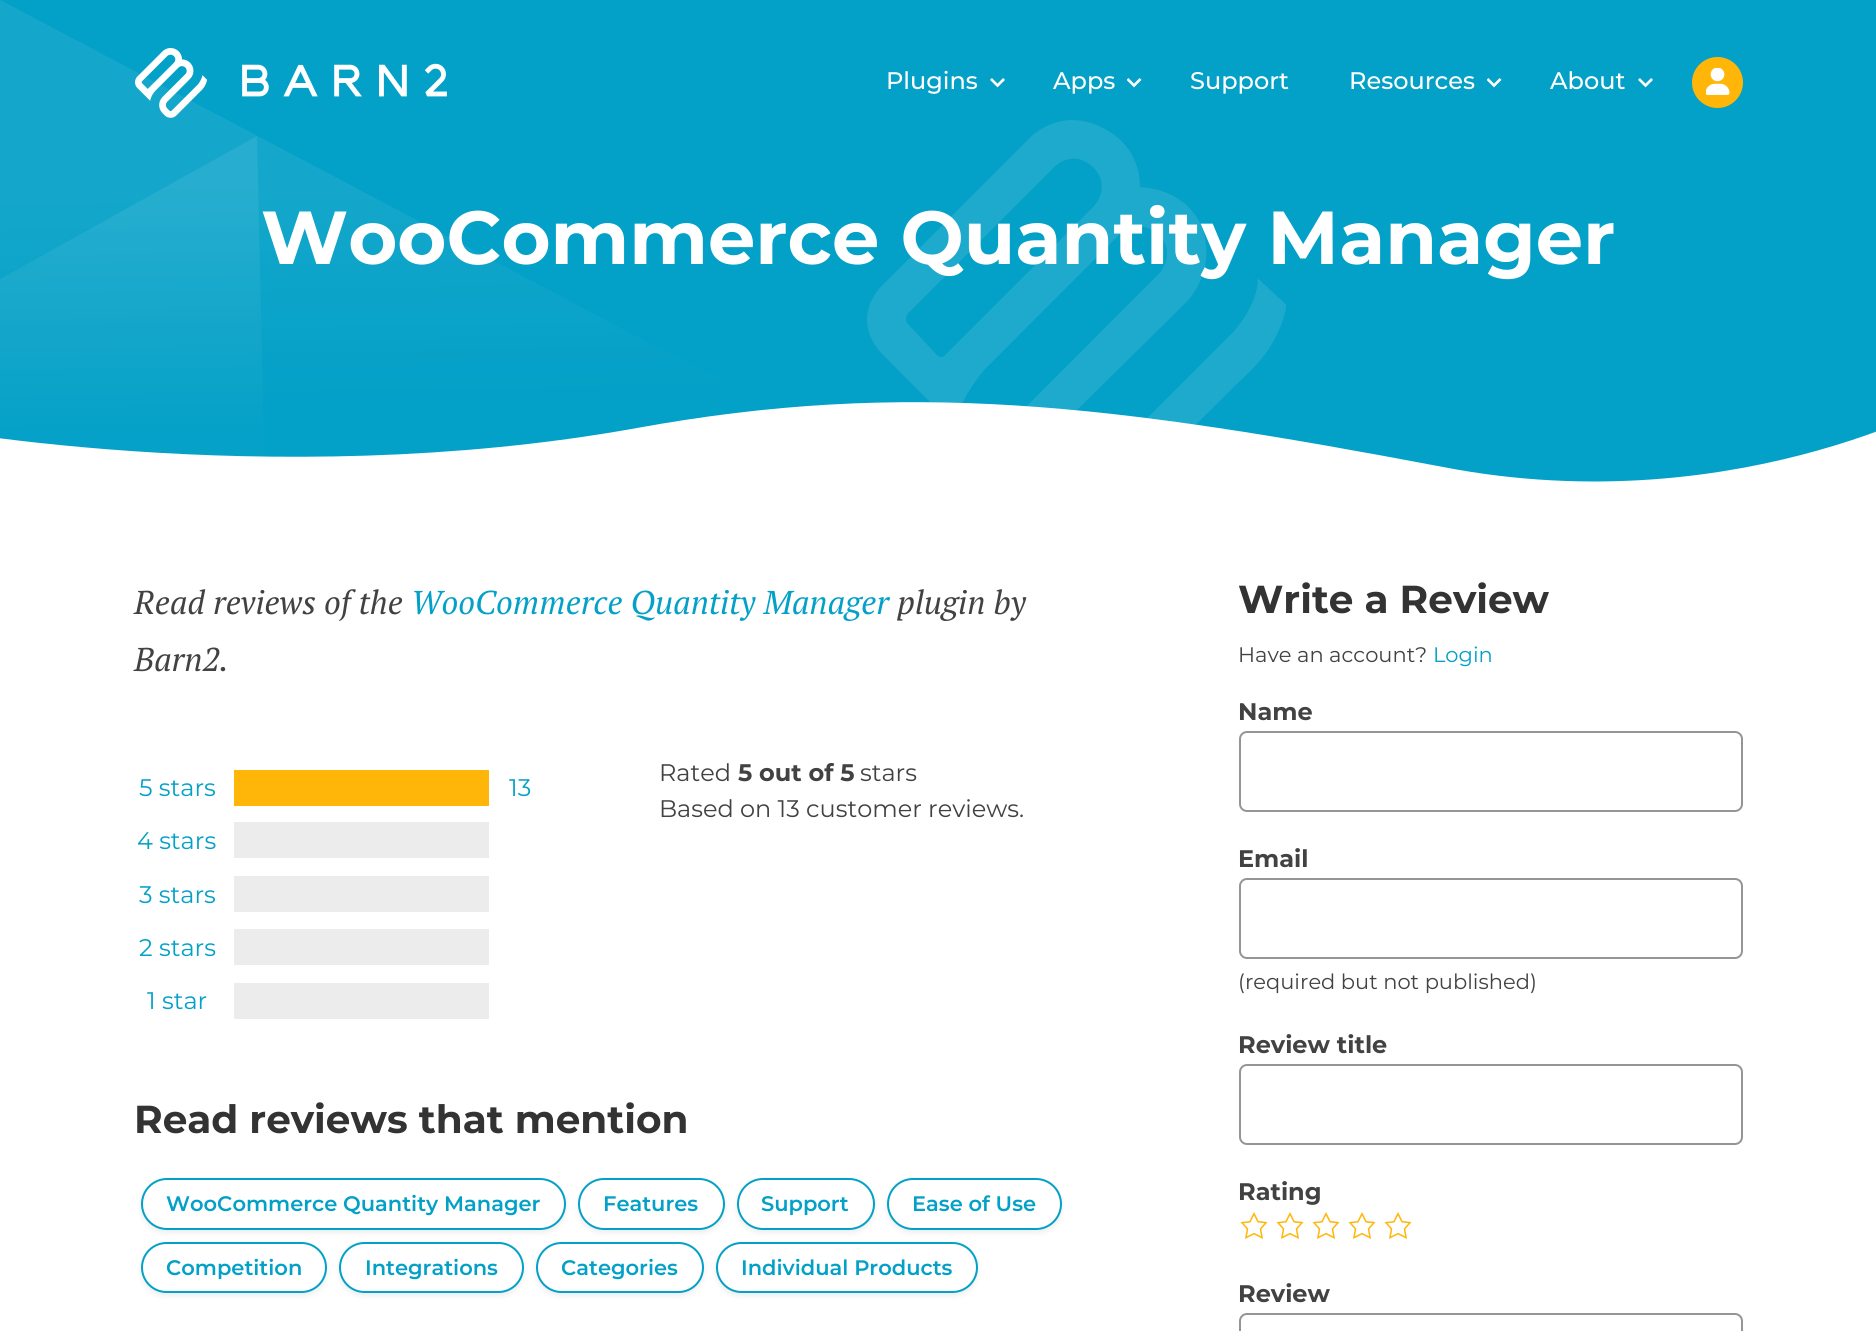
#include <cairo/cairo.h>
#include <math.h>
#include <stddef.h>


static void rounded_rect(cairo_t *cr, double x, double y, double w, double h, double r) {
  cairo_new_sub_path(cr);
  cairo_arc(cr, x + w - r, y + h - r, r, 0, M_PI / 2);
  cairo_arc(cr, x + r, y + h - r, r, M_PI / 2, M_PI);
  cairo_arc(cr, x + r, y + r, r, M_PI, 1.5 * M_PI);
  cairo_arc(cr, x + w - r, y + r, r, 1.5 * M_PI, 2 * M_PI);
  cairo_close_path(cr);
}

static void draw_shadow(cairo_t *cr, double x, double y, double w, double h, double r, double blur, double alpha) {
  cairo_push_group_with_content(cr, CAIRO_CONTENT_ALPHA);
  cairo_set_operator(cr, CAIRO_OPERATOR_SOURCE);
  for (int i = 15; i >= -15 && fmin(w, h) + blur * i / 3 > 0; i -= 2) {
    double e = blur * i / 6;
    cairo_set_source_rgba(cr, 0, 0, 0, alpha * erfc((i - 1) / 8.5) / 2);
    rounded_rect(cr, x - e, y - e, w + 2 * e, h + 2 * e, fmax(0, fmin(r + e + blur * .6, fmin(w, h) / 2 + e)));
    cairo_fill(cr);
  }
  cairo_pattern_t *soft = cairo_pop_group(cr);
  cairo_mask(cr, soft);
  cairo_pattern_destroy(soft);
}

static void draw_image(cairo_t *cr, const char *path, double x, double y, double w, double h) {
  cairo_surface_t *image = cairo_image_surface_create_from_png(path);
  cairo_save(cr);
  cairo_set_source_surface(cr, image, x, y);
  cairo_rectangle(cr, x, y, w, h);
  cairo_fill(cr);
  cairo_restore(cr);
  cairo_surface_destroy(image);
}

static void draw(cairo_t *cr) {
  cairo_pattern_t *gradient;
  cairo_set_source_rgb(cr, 1, 1, 1);
  cairo_paint(cr);
  cairo_set_source_rgb(cr, 3 / 255.0, 160 / 255.0, 199 / 255.0);
  cairo_rectangle(cr, 0, 0, 1876, 482);
  cairo_fill(cr);
  gradient = cairo_pattern_create_linear(131, 209, 134, 483);
  cairo_pattern_add_color_stop_rgba(gradient, 0, 21 / 255.0, 167 / 255.0, 203 / 255.0, 1);
  cairo_pattern_add_color_stop_rgba(gradient, 1, 3 / 255.0, 160 / 255.0, 199 / 255.0, 1);
  cairo_set_source(cr, gradient);
  cairo_pattern_destroy(gradient);
  cairo_new_path(cr);
  cairo_move_to(cr, 257, 136);
  cairo_line_to(cr, 0, 279);
  cairo_line_to(cr, 0, 490);
  cairo_line_to(cr, 265, 490);
  cairo_close_path(cr);
  cairo_fill(cr);
  gradient = cairo_pattern_create_linear(403, 181, 407, 408);
  cairo_pattern_add_color_stop_rgba(gradient, 0, 1, 1, 1, 0.07);
  cairo_pattern_add_color_stop_rgba(gradient, 1, 1, 1, 1, 0);
  cairo_set_source(cr, gradient);
  cairo_pattern_destroy(gradient);
  cairo_set_fill_rule(cr, CAIRO_FILL_RULE_EVEN_ODD);
  cairo_new_path(cr);
  cairo_move_to(cr, 0, 0);
  cairo_line_to(cr, 799, 422);
  cairo_line_to(cr, 0, 422);
  cairo_close_path(cr);
  cairo_fill(cr);
  draw_image(cr, "images/1.png", 135, 48, 72, 70);
  draw_image(cr, "images/2.png", 242, 63, 205, 34);
  draw_image(cr, "images/3.png", 990, 78, 15, 10);
  draw_image(cr, "images/4.png", 1127, 78, 15, 10);
  draw_image(cr, "images/4.png", 1487, 78, 15, 10);
  draw_image(cr, "images/3.png", 1638, 78, 15, 10);
  cairo_set_source_rgb(cr, 1, 182 / 255.0, 8 / 255.0);
  cairo_arc(cr, 1717.5, 82.5, 25.5, 0, 2 * M_PI);
  cairo_fill(cr);
  draw_image(cr, "images/5.png", 1706, 68, 24, 27);
  draw_image(cr, "images/6.png", 867, 120, 419, 305);
  cairo_save(cr);
  cairo_set_fill_rule(cr, CAIRO_FILL_RULE_WINDING);
  cairo_rectangle(cr, 0, 390, 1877, 101);
  cairo_clip(cr);
  cairo_set_source_rgb(cr, 1, 1, 1);
  cairo_set_fill_rule(cr, CAIRO_FILL_RULE_EVEN_ODD);
  cairo_new_path(cr);
  cairo_move_to(cr, 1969, 390);
  cairo_curve_to(cr, 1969, 390, 1743, 525, 1443, 467);
  cairo_curve_to(cr, 1111, 404, 906, 379, 637, 428);
  cairo_curve_to(cr, 266, 495, -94, 424, -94, 424);
  cairo_line_to(cr, -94, 546);
  cairo_line_to(cr, 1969, 546);
  cairo_close_path(cr);
  cairo_fill(cr);
  cairo_restore(cr);
  cairo_rectangle(cr, 234, 770, 255, 36);
  cairo_fill(cr);
  cairo_set_source_rgb(cr, 236 / 255.0, 236 / 255.0, 236 / 255.0);
  cairo_rectangle(cr, 234, 822, 255, 36);
  cairo_fill(cr);
  cairo_rectangle(cr, 234, 876, 255, 36);
  cairo_fill(cr);
  cairo_rectangle(cr, 234, 929, 255, 36);
  cairo_fill(cr);
  cairo_rectangle(cr, 234, 983, 255, 36);
  cairo_fill(cr);
  cairo_set_source_rgb(cr, 0, 0, 0);
  draw_shadow(cr, 141, 1181, 425, 52, 26, 3, 0.07);
  cairo_set_source_rgb(cr, 1, 1, 1);
  rounded_rect(cr, 142, 1179, 423, 50, 25);
  cairo_fill_preserve(cr);
  cairo_set_source_rgb(cr, 3 / 255.0, 160 / 255.0, 199 / 255.0);
  cairo_stroke(cr);
  cairo_set_source_rgb(cr, 0, 0, 0);
  draw_shadow(cr, 578, 1181, 147, 52, 26, 3, 0.07);
  cairo_set_source_rgb(cr, 1, 1, 1);
  rounded_rect(cr, 579, 1179, 145, 50, 25);
  cairo_fill_preserve(cr);
  cairo_set_source_rgb(cr, 3 / 255.0, 160 / 255.0, 199 / 255.0);
  cairo_stroke(cr);
  cairo_set_source_rgb(cr, 0, 0, 0);
  draw_shadow(cr, 737, 1181, 138, 52, 26, 3, 0.07);
  cairo_set_source_rgb(cr, 1, 1, 1);
  rounded_rect(cr, 738, 1179, 136, 50, 25);
  cairo_fill_preserve(cr);
  cairo_set_source_rgb(cr, 3 / 255.0, 160 / 255.0, 199 / 255.0);
  cairo_stroke(cr);
  cairo_set_source_rgb(cr, 0, 0, 0);
  draw_shadow(cr, 887, 1181, 175, 52, 26, 3, 0.07);
  cairo_set_source_rgb(cr, 1, 1, 1);
  rounded_rect(cr, 888, 1179, 173, 50, 25);
  cairo_fill_preserve(cr);
  cairo_set_source_rgb(cr, 3 / 255.0, 160 / 255.0, 199 / 255.0);
  cairo_stroke(cr);
  cairo_set_source_rgb(cr, 0, 0, 0);
  draw_shadow(cr, 141, 1245, 186, 51, 25.5, 3, 0.07);
  cairo_set_source_rgb(cr, 1, 1, 1);
  rounded_rect(cr, 142, 1243, 184, 49, 24.5);
  cairo_fill_preserve(cr);
  cairo_set_source_rgb(cr, 3 / 255.0, 160 / 255.0, 199 / 255.0);
  cairo_stroke(cr);
  cairo_set_source_rgb(cr, 0, 0, 0);
  draw_shadow(cr, 339, 1245, 185, 51, 25.5, 3, 0.07);
  cairo_set_source_rgb(cr, 1, 1, 1);
  rounded_rect(cr, 340, 1243, 183, 49, 24.5);
  cairo_fill_preserve(cr);
  cairo_set_source_rgb(cr, 3 / 255.0, 160 / 255.0, 199 / 255.0);
  cairo_stroke(cr);
  cairo_set_source_rgb(cr, 0, 0, 0);
  draw_shadow(cr, 536, 1245, 168, 51, 25.5, 3, 0.07);
  cairo_set_source_rgb(cr, 1, 1, 1);
  rounded_rect(cr, 537, 1243, 166, 49, 24.5);
  cairo_fill_preserve(cr);
  cairo_set_source_rgb(cr, 3 / 255.0, 160 / 255.0, 199 / 255.0);
  cairo_stroke(cr);
  cairo_set_source_rgb(cr, 0, 0, 0);
  draw_shadow(cr, 716, 1245, 262, 51, 25.5, 3, 0.07);
  cairo_set_source_rgb(cr, 1, 1, 1);
  rounded_rect(cr, 717, 1243, 260, 49, 24.5);
  cairo_fill_preserve(cr);
  cairo_set_source_rgb(cr, 3 / 255.0, 160 / 255.0, 199 / 255.0);
  cairo_stroke(cr);
  rounded_rect(cr, 1240, 732, 502, 79, 7);
  cairo_set_source_rgb(cr, 147 / 255.0, 149 / 255.0, 151 / 255.0);
  cairo_stroke(cr);
  rounded_rect(cr, 1240, 879, 502, 79, 7);
  cairo_stroke(cr);
  rounded_rect(cr, 1240, 1065, 502, 79, 7);
  cairo_stroke(cr);
  draw_image(cr, "images/7.png", 1240, 1212, 28, 27);
  draw_image(cr, "images/7.png", 1276, 1212, 28, 27);
  draw_image(cr, "images/7.png", 1312, 1212, 28, 27);
  draw_image(cr, "images/7.png", 1348, 1212, 28, 27);
  draw_image(cr, "images/7.png", 1384, 1212, 28, 27);
  rounded_rect(cr, 1240, 1314, 502, 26, 7);
  cairo_stroke(cr);
  cairo_select_font_face(cr, "Montserrat Medium", CAIRO_FONT_SLANT_NORMAL, CAIRO_FONT_WEIGHT_NORMAL);
  cairo_set_font_size(cr, 24);
  cairo_set_source_rgb(cr, 1, 1, 1);
  cairo_move_to(cr, 886, 89);
  cairo_show_text(cr, "Plugins");
  cairo_move_to(cr, 1053, 89);
  cairo_show_text(cr, "Apps");
  cairo_move_to(cr, 1190, 89);
  cairo_show_text(cr, "Support");
  cairo_move_to(cr, 1349, 89);
  cairo_show_text(cr, "Resources");
  cairo_move_to(cr, 1550, 89);
  cairo_show_text(cr, "About");
  cairo_select_font_face(cr, "Montserrat", CAIRO_FONT_SLANT_NORMAL, CAIRO_FONT_WEIGHT_BOLD);
  cairo_set_font_size(cr, 75);
  cairo_move_to(cr, 261, 264);
  cairo_show_text(cr, "WooCommerce Quantity Manager");
  cairo_select_font_face(cr, "PT Serif", CAIRO_FONT_SLANT_ITALIC, CAIRO_FONT_WEIGHT_NORMAL);
  cairo_set_font_size(cr, 33);
  cairo_set_source_rgb(cr, 66 / 255.0, 66 / 255.0, 66 / 255.0);
  cairo_move_to(cr, 134, 614);
  cairo_show_text(cr, "Read reviews of the");
  cairo_set_source_rgb(cr, 3 / 255.0, 160 / 255.0, 199 / 255.0);
  cairo_move_to(cr, 411, 614);
  cairo_show_text(cr, "WooCommerce Quantity Manager");
  cairo_set_source_rgb(cr, 66 / 255.0, 66 / 255.0, 66 / 255.0);
  cairo_move_to(cr, 897, 614);
  cairo_show_text(cr, "plugin by");
  cairo_move_to(cr, 134, 671);
  cairo_show_text(cr, "Barn2.");
  cairo_select_font_face(cr, "Montserrat", CAIRO_FONT_SLANT_NORMAL, CAIRO_FONT_WEIGHT_NORMAL);
  cairo_set_font_size(cr, 24);
  cairo_set_source_rgb(cr, 3 / 255.0, 160 / 255.0, 199 / 255.0);
  cairo_move_to(cr, 139, 796);
  cairo_show_text(cr, "5 stars");
  cairo_move_to(cr, 509, 796);
  cairo_show_text(cr, "13");
  cairo_move_to(cr, 137, 849);
  cairo_show_text(cr, "4 stars");
  cairo_move_to(cr, 139, 903);
  cairo_show_text(cr, "3 stars");
  cairo_move_to(cr, 139, 956);
  cairo_show_text(cr, "2 stars");
  cairo_move_to(cr, 147, 1009);
  cairo_show_text(cr, "1 star");
  cairo_set_source_rgb(cr, 66 / 255.0, 66 / 255.0, 66 / 255.0);
  cairo_move_to(cr, 659, 781);
  cairo_show_text(cr, "Rated");
  cairo_select_font_face(cr, "Montserrat", CAIRO_FONT_SLANT_NORMAL, CAIRO_FONT_WEIGHT_BOLD);
  cairo_move_to(cr, 738, 781);
  cairo_show_text(cr, "5 out of 5");
  cairo_select_font_face(cr, "Montserrat", CAIRO_FONT_SLANT_NORMAL, CAIRO_FONT_WEIGHT_NORMAL);
  cairo_move_to(cr, 860, 781);
  cairo_show_text(cr, "stars");
  cairo_move_to(cr, 659, 817);
  cairo_show_text(cr, "Based on 13 customer reviews.");
  cairo_select_font_face(cr, "Montserrat", CAIRO_FONT_SLANT_NORMAL, CAIRO_FONT_WEIGHT_BOLD);
  cairo_set_font_size(cr, 39);
  cairo_set_source_rgb(cr, 51 / 255.0, 51 / 255.0, 51 / 255.0);
  cairo_move_to(cr, 134, 1133);
  cairo_show_text(cr, "Read reviews that mention");
  cairo_select_font_face(cr, "Montserrat SemiBold", CAIRO_FONT_SLANT_NORMAL, CAIRO_FONT_WEIGHT_NORMAL);
  cairo_set_font_size(cr, 21);
  cairo_set_source_rgb(cr, 3 / 255.0, 160 / 255.0, 199 / 255.0);
  cairo_move_to(cr, 166, 1211);
  cairo_show_text(cr, "WooCommerce Quantity Manager");
  cairo_move_to(cr, 603, 1211);
  cairo_show_text(cr, "Features");
  cairo_move_to(cr, 761, 1211);
  cairo_show_text(cr, "Support");
  cairo_move_to(cr, 912, 1211);
  cairo_show_text(cr, "Ease of Use");
  cairo_move_to(cr, 166, 1275);
  cairo_show_text(cr, "Competition");
  cairo_move_to(cr, 365, 1275);
  cairo_show_text(cr, "Integrations");
  cairo_move_to(cr, 561, 1275);
  cairo_show_text(cr, "Categories");
  cairo_move_to(cr, 741, 1275);
  cairo_show_text(cr, "Individual Products");
  cairo_select_font_face(cr, "Montserrat", CAIRO_FONT_SLANT_NORMAL, CAIRO_FONT_WEIGHT_BOLD);
  cairo_set_font_size(cr, 39);
  cairo_set_source_rgb(cr, 51 / 255.0, 51 / 255.0, 51 / 255.0);
  cairo_move_to(cr, 1238, 613);
  cairo_show_text(cr, "Write a Review");
  cairo_select_font_face(cr, "Montserrat", CAIRO_FONT_SLANT_NORMAL, CAIRO_FONT_WEIGHT_NORMAL);
  cairo_set_font_size(cr, 21);
  cairo_set_source_rgb(cr, 66 / 255.0, 66 / 255.0, 66 / 255.0);
  cairo_move_to(cr, 1238, 662);
  cairo_show_text(cr, "Have an account?");
  cairo_set_source_rgb(cr, 3 / 255.0, 160 / 255.0, 199 / 255.0);
  cairo_move_to(cr, 1433, 662);
  cairo_show_text(cr, "Login");
  cairo_select_font_face(cr, "Montserrat", CAIRO_FONT_SLANT_NORMAL, CAIRO_FONT_WEIGHT_BOLD);
  cairo_set_font_size(cr, 24);
  cairo_set_source_rgb(cr, 66 / 255.0, 66 / 255.0, 66 / 255.0);
  cairo_move_to(cr, 1238, 720);
  cairo_show_text(cr, "Name");
  cairo_move_to(cr, 1238, 867);
  cairo_show_text(cr, "Email");
  cairo_select_font_face(cr, "Montserrat", CAIRO_FONT_SLANT_NORMAL, CAIRO_FONT_WEIGHT_NORMAL);
  cairo_set_font_size(cr, 21);
  cairo_move_to(cr, 1238, 989);
  cairo_show_text(cr, "(required but not published)");
  cairo_select_font_face(cr, "Montserrat", CAIRO_FONT_SLANT_NORMAL, CAIRO_FONT_WEIGHT_BOLD);
  cairo_set_font_size(cr, 24);
  cairo_move_to(cr, 1238, 1053);
  cairo_show_text(cr, "Review title");
  cairo_move_to(cr, 1238, 1200);
  cairo_show_text(cr, "Rating");
  cairo_move_to(cr, 1238, 1302);
  cairo_show_text(cr, "Review");
}

int main(void) {
  cairo_surface_t *surface = cairo_image_surface_create(CAIRO_FORMAT_RGB24, 1876, 1331);
  cairo_t *cr = cairo_create(surface);
  cairo_font_options_t *options = cairo_font_options_create();
  cairo_font_options_set_hint_metrics(options, CAIRO_HINT_METRICS_OFF);
  cairo_font_options_set_hint_style(options, CAIRO_HINT_STYLE_NONE);
  cairo_set_font_options(cr, options);
  cairo_set_miter_limit(cr, 4);
  draw(cr);
  cairo_surface_write_to_png(surface, "out.png");
  cairo_font_options_destroy(options);
  cairo_destroy(cr);
  cairo_surface_destroy(surface);
  return 0;
}
